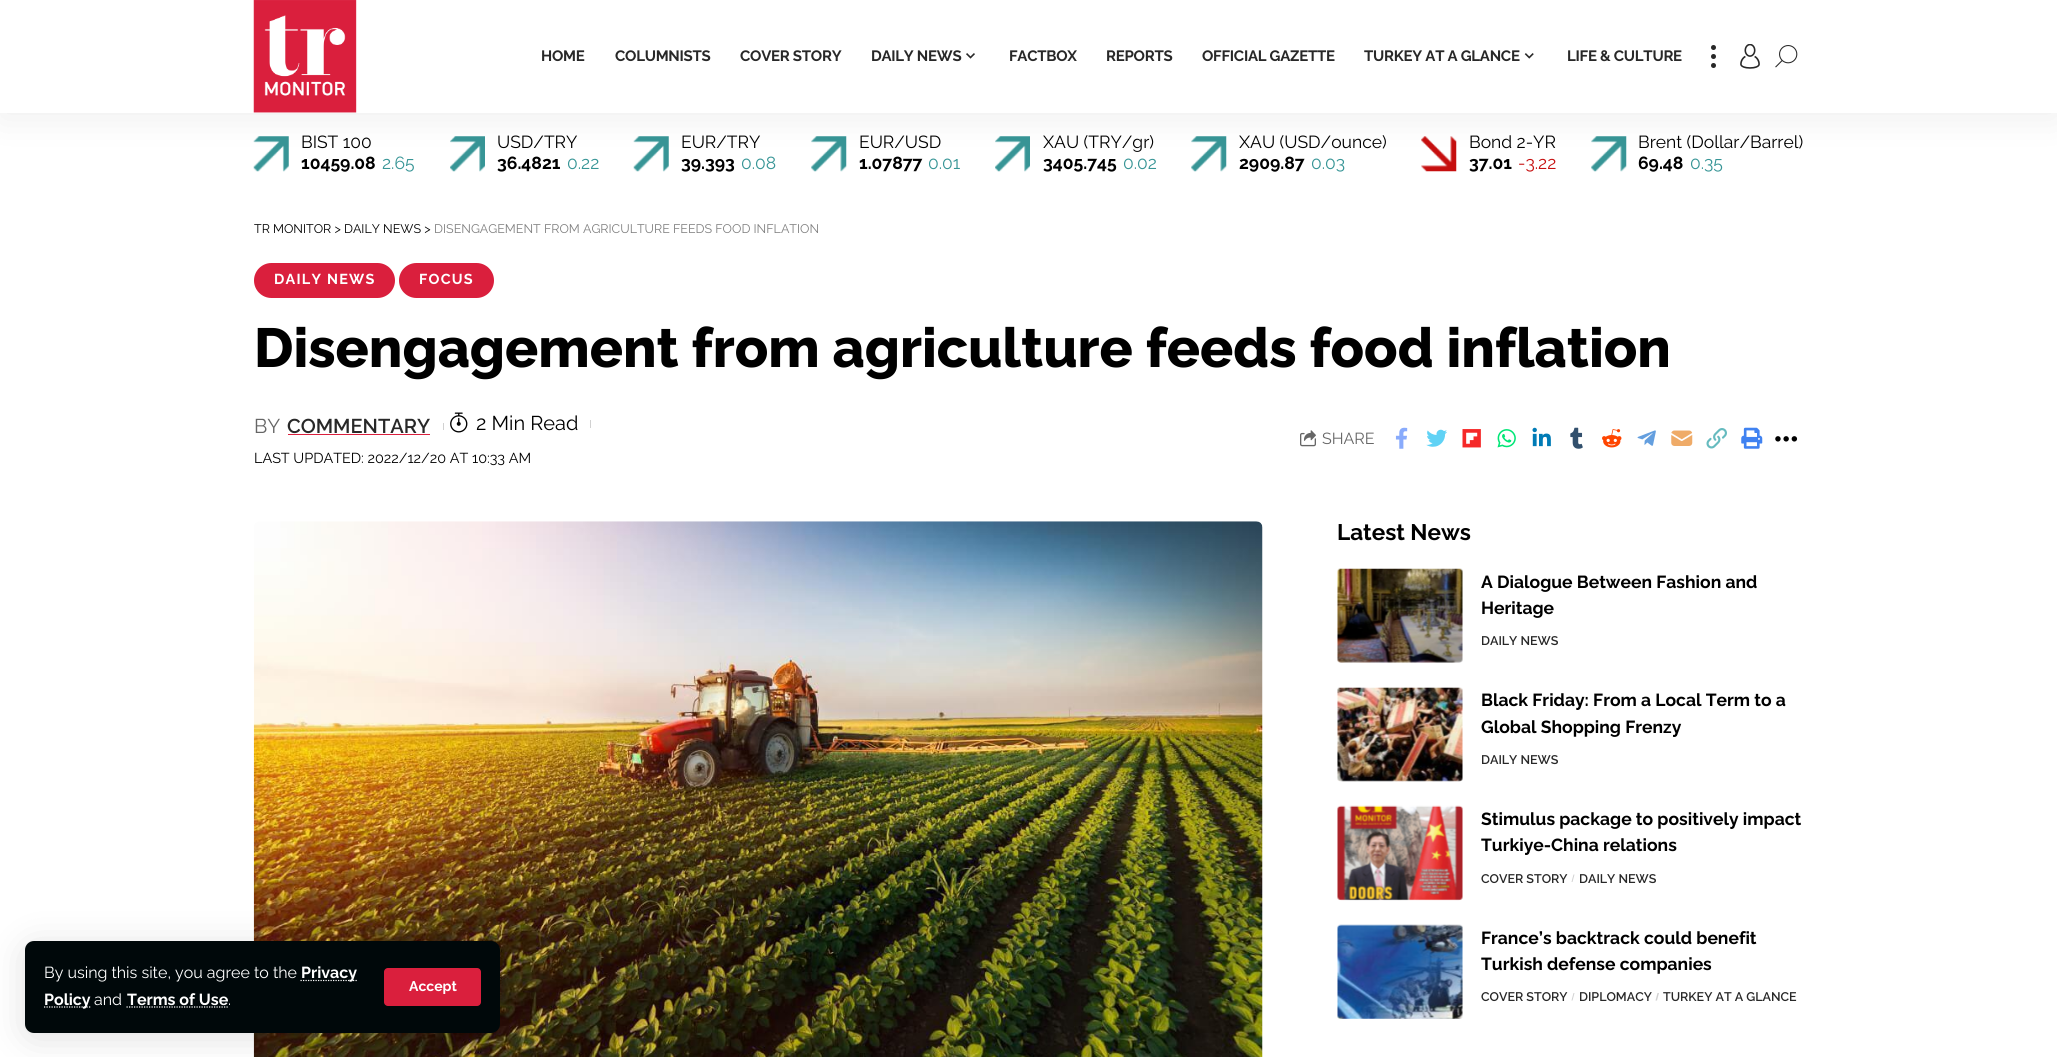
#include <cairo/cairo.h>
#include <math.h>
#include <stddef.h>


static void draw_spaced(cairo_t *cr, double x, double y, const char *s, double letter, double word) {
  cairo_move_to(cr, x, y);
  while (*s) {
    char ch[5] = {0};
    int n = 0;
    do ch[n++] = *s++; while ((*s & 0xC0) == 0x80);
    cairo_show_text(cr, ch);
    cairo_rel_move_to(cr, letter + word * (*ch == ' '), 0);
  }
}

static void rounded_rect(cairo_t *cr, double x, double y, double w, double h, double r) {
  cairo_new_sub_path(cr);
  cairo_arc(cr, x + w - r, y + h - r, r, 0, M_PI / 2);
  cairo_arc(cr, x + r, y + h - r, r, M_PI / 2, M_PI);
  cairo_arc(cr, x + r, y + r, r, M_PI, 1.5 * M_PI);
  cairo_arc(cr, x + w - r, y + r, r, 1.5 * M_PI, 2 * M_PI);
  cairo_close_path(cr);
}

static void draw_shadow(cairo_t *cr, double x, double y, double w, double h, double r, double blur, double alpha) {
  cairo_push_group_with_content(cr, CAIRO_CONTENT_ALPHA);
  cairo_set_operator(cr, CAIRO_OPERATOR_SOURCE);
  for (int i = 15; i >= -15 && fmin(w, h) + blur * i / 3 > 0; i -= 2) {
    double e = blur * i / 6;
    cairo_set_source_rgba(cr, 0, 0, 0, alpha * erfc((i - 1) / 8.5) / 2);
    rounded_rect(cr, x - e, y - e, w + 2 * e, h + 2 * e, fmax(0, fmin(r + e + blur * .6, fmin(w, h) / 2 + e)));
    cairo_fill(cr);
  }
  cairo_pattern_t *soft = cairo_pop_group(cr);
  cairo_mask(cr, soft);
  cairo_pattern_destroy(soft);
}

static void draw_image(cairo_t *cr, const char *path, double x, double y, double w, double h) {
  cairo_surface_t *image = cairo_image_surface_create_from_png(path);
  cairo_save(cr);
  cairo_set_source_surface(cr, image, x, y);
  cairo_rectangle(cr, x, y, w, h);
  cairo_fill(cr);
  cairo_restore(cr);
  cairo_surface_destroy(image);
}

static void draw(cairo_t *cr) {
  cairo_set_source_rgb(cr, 1, 1, 1);
  cairo_paint(cr);
  draw_image(cr, "images/6.png", 253, 136, 36, 36);
  draw_image(cr, "images/7.png", 450, 136, 35, 36);
  draw_image(cr, "images/8.png", 633, 136, 36, 36);
  draw_image(cr, "images/9.png", 811, 136, 36, 36);
  draw_image(cr, "images/7.png", 995, 136, 35, 36);
  draw_image(cr, "images/10.png", 1191, 136, 36, 36);
  draw_image(cr, "images/11.png", 1421, 136, 36, 36);
  draw_image(cr, "images/9.png", 1591, 136, 36, 36);
  cairo_set_source_rgb(cr, 0, 0, 0);
  draw_shadow(cr, 0, 5, 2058, 113, 0, 19, 0.07);
  cairo_set_source_rgb(cr, 1, 1, 1);
  cairo_rectangle(cr, 0, 0, 2057, 113);
  cairo_fill(cr);
  draw_image(cr, "images/1.png", 253, 0, 104, 113);
  draw_image(cr, "images/2.png", 966, 53, 9, 6);
  draw_image(cr, "images/3.png", 1524, 53, 10, 6);
  cairo_set_source_rgb(cr, 40 / 255.0, 40 / 255.0, 40 / 255.0);
  cairo_arc(cr, 1713.5, 47.5, 2.5, 0, 2 * M_PI);
  cairo_fill(cr);
  cairo_arc(cr, 1713.5, 56.5, 2.5, 0, 2 * M_PI);
  cairo_fill(cr);
  cairo_arc(cr, 1713.5, 65.5, 2.5, 0, 2 * M_PI);
  cairo_fill(cr);
  draw_image(cr, "images/4.png", 1740, 44, 20, 25);
  draw_image(cr, "images/5.png", 1775, 45, 23, 23);
  draw_image(cr, "images/26.png", 253, 521, 1010, 536);
  cairo_set_source_rgb(cr, 0, 0, 0);
  draw_shadow(cr, 25, 946, 475, 92, 9, 19, 0.12);
  cairo_set_source_rgb(cr, 0, 8 / 255.0, 10 / 255.0);
  rounded_rect(cr, 25, 941, 475, 92, 9);
  cairo_fill(cr);
  cairo_new_path(cr);
  cairo_move_to(cr, 300.5, 980.5);
  cairo_line_to(cr, 357, 980.5);
  cairo_set_source_rgb(cr, 1, 1, 1);
  cairo_set_line_width(cr, 1.2);
  cairo_set_dash(cr, (double[]){1.25, 1.25}, 2, 0);
  cairo_stroke(cr);
  cairo_new_path(cr);
  cairo_move_to(cr, 44, 1007);
  cairo_line_to(cr, 90.5, 1007);
  cairo_stroke(cr);
  cairo_new_path(cr);
  cairo_move_to(cr, 126.5, 1007);
  cairo_line_to(cr, 228, 1007);
  cairo_stroke(cr);
  cairo_set_source_rgb(cr, 218 / 255.0, 31 / 255.0, 61 / 255.0);
  rounded_rect(cr, 384, 968, 97, 38, 4);
  cairo_fill(cr);
  rounded_rect(cr, 254, 263, 141, 35, 17.5);
  cairo_fill(cr);
  rounded_rect(cr, 399, 263, 95, 35, 17.5);
  cairo_fill(cr);
  cairo_rectangle(cr, 288, 434, 142, 1);
  cairo_fill(cr);
  cairo_set_source_rgb(cr, 209 / 255.0, 209 / 255.0, 209 / 255.0);
  cairo_rectangle(cr, 443, 423, 1, 7);
  cairo_fill(cr);
  draw_image(cr, "images/12.png", 450, 412, 18, 21);
  cairo_rectangle(cr, 590, 420, 1, 8);
  cairo_fill(cr);
  draw_image(cr, "images/13.png", 1300, 430, 16, 17);
  draw_image(cr, "images/14.png", 1395, 427, 13, 22);
  draw_image(cr, "images/15.png", 1426, 429, 22, 18);
  draw_image(cr, "images/16.png", 1462, 429, 19, 19);
  draw_image(cr, "images/17.png", 1497, 429, 19, 19);
  draw_image(cr, "images/18.png", 1532, 427, 19, 20);
  draw_image(cr, "images/19.png", 1570, 427, 13, 22);
  draw_image(cr, "images/20.png", 1602, 429, 20, 19);
  draw_image(cr, "images/21.png", 1637, 430, 19, 16);
  draw_image(cr, "images/22.png", 1671, 430, 22, 16);
  draw_image(cr, "images/23.png", 1706, 428, 21, 21);
  draw_image(cr, "images/24.png", 1741, 427, 22, 22);
  draw_image(cr, "images/25.png", 1775, 436, 23, 6);
  draw_image(cr, "images/27.png", 1337, 568, 126, 95);
  draw_image(cr, "images/28.png", 1337, 687, 126, 95);
  draw_image(cr, "images/29.png", 1337, 805, 126, 96);
  cairo_new_path(cr);
  cairo_move_to(cr, 1573.5, 874.5);
  cairo_line_to(cr, 1574.5, 874.5);
  cairo_line_to(cr, 1572.5, 882);
  cairo_line_to(cr, 1571.5, 882);
  cairo_close_path(cr);
  cairo_fill(cr);
  draw_image(cr, "images/30.png", 1337, 924, 126, 95);
  cairo_new_path(cr);
  cairo_move_to(cr, 1573.5, 993);
  cairo_line_to(cr, 1574.5, 993);
  cairo_line_to(cr, 1572.5, 1000.5);
  cairo_line_to(cr, 1571.5, 1000.5);
  cairo_close_path(cr);
  cairo_fill(cr);
  cairo_new_path(cr);
  cairo_move_to(cr, 1657.5, 993);
  cairo_line_to(cr, 1659, 993);
  cairo_line_to(cr, 1657, 1000.5);
  cairo_line_to(cr, 1655.5, 1000.5);
  cairo_close_path(cr);
  cairo_fill(cr);
  cairo_select_font_face(cr, "Raleway", CAIRO_FONT_SLANT_NORMAL, CAIRO_FONT_WEIGHT_BOLD);
  cairo_set_font_size(cr, 15);
  cairo_set_source_rgb(cr, 40 / 255.0, 40 / 255.0, 40 / 255.0);
  draw_spaced(cr, 541, 61, "HOME", -0.25, 0);
  draw_spaced(cr, 615, 61, "COLUMNISTS", -0.25, 0);
  draw_spaced(cr, 740, 61, "COVER STORY", -0.25, 0);
  draw_spaced(cr, 871, 61, "DAILY NEWS", -0.25, 0);
  draw_spaced(cr, 1009, 61, "FACTBOX", -0.25, 0);
  draw_spaced(cr, 1106, 61, "REPORTS", -0.25, 0);
  draw_spaced(cr, 1202, 61, "OFFICIAL GAZETTE", -0.25, 0);
  draw_spaced(cr, 1364, 61, "TURKEY AT A GLANCE", -0.25, 0);
  draw_spaced(cr, 1567, 61, "LIFE & CULTURE", -0.25, 0);
  cairo_select_font_face(cr, "Raleway", CAIRO_FONT_SLANT_NORMAL, CAIRO_FONT_WEIGHT_NORMAL);
  cairo_set_font_size(cr, 16);
  cairo_set_source_rgb(cr, 1, 1, 1);
  cairo_move_to(cr, 44, 978);
  cairo_show_text(cr, "By using this site, you agree to the");
  cairo_select_font_face(cr, "Raleway", CAIRO_FONT_SLANT_NORMAL, CAIRO_FONT_WEIGHT_BOLD);
  cairo_move_to(cr, 301, 978);
  cairo_show_text(cr, "Privacy");
  cairo_move_to(cr, 44, 1005);
  cairo_show_text(cr, "Policy");
  cairo_select_font_face(cr, "Raleway", CAIRO_FONT_SLANT_NORMAL, CAIRO_FONT_WEIGHT_NORMAL);
  cairo_move_to(cr, 94, 1005);
  cairo_show_text(cr, "and");
  cairo_select_font_face(cr, "Raleway", CAIRO_FONT_SLANT_NORMAL, CAIRO_FONT_WEIGHT_BOLD);
  cairo_move_to(cr, 127, 1005);
  cairo_show_text(cr, "Terms of Use");
  cairo_select_font_face(cr, "Raleway", CAIRO_FONT_SLANT_NORMAL, CAIRO_FONT_WEIGHT_NORMAL);
  cairo_move_to(cr, 228, 1005);
  cairo_show_text(cr, ".");
  cairo_select_font_face(cr, "Raleway", CAIRO_FONT_SLANT_NORMAL, CAIRO_FONT_WEIGHT_BOLD);
  cairo_set_font_size(cr, 14);
  cairo_move_to(cr, 409, 991);
  cairo_show_text(cr, "Accept");
  cairo_select_font_face(cr, "Raleway", CAIRO_FONT_SLANT_NORMAL, CAIRO_FONT_WEIGHT_NORMAL);
  cairo_set_font_size(cr, 17.5);
  cairo_set_source_rgb(cr, 0, 0, 0);
  cairo_move_to(cr, 301, 148);
  cairo_show_text(cr, "BIST 100");
  cairo_select_font_face(cr, "Raleway", CAIRO_FONT_SLANT_NORMAL, CAIRO_FONT_WEIGHT_BOLD);
  cairo_move_to(cr, 301, 169);
  cairo_show_text(cr, "10459.08");
  cairo_select_font_face(cr, "Raleway", CAIRO_FONT_SLANT_NORMAL, CAIRO_FONT_WEIGHT_NORMAL);
  cairo_set_source_rgb(cr, 55 / 255.0, 149 / 255.0, 150 / 255.0);
  cairo_move_to(cr, 382, 169);
  cairo_show_text(cr, "2.65");
  cairo_set_source_rgb(cr, 0, 0, 0);
  cairo_move_to(cr, 497, 148);
  cairo_show_text(cr, "USD/TRY");
  cairo_select_font_face(cr, "Raleway", CAIRO_FONT_SLANT_NORMAL, CAIRO_FONT_WEIGHT_BOLD);
  cairo_move_to(cr, 497, 169);
  cairo_show_text(cr, "36.4821");
  cairo_select_font_face(cr, "Raleway", CAIRO_FONT_SLANT_NORMAL, CAIRO_FONT_WEIGHT_NORMAL);
  cairo_set_source_rgb(cr, 55 / 255.0, 149 / 255.0, 150 / 255.0);
  cairo_move_to(cr, 567, 169);
  cairo_show_text(cr, "0.22");
  cairo_set_source_rgb(cr, 0, 0, 0);
  cairo_move_to(cr, 681, 148);
  cairo_show_text(cr, "EUR/TRY");
  cairo_select_font_face(cr, "Raleway", CAIRO_FONT_SLANT_NORMAL, CAIRO_FONT_WEIGHT_BOLD);
  cairo_move_to(cr, 681, 169);
  cairo_show_text(cr, "39.393");
  cairo_select_font_face(cr, "Raleway", CAIRO_FONT_SLANT_NORMAL, CAIRO_FONT_WEIGHT_NORMAL);
  cairo_set_source_rgb(cr, 55 / 255.0, 149 / 255.0, 150 / 255.0);
  cairo_move_to(cr, 741, 169);
  cairo_show_text(cr, "0.08");
  cairo_set_source_rgb(cr, 0, 0, 0);
  cairo_move_to(cr, 859, 148);
  cairo_show_text(cr, "EUR/USD");
  cairo_select_font_face(cr, "Raleway", CAIRO_FONT_SLANT_NORMAL, CAIRO_FONT_WEIGHT_BOLD);
  cairo_move_to(cr, 859, 169);
  cairo_show_text(cr, "1.07877");
  cairo_select_font_face(cr, "Raleway", CAIRO_FONT_SLANT_NORMAL, CAIRO_FONT_WEIGHT_NORMAL);
  cairo_set_source_rgb(cr, 55 / 255.0, 149 / 255.0, 150 / 255.0);
  cairo_move_to(cr, 928, 169);
  cairo_show_text(cr, "0.01");
  cairo_set_source_rgb(cr, 0, 0, 0);
  cairo_move_to(cr, 1043, 148);
  cairo_show_text(cr, "XAU (TRY/gr)");
  cairo_select_font_face(cr, "Raleway", CAIRO_FONT_SLANT_NORMAL, CAIRO_FONT_WEIGHT_BOLD);
  cairo_move_to(cr, 1043, 169);
  cairo_show_text(cr, "3405.745");
  cairo_select_font_face(cr, "Raleway", CAIRO_FONT_SLANT_NORMAL, CAIRO_FONT_WEIGHT_NORMAL);
  cairo_set_source_rgb(cr, 55 / 255.0, 149 / 255.0, 150 / 255.0);
  cairo_move_to(cr, 1123, 169);
  cairo_show_text(cr, "0.02");
  cairo_set_source_rgb(cr, 0, 0, 0);
  cairo_move_to(cr, 1239, 148);
  cairo_show_text(cr, "XAU (USD/ounce)");
  cairo_select_font_face(cr, "Raleway", CAIRO_FONT_SLANT_NORMAL, CAIRO_FONT_WEIGHT_BOLD);
  cairo_move_to(cr, 1239, 169);
  cairo_show_text(cr, "2909.87");
  cairo_select_font_face(cr, "Raleway", CAIRO_FONT_SLANT_NORMAL, CAIRO_FONT_WEIGHT_NORMAL);
  cairo_set_source_rgb(cr, 55 / 255.0, 149 / 255.0, 150 / 255.0);
  cairo_move_to(cr, 1311, 169);
  cairo_show_text(cr, "0.03");
  cairo_set_source_rgb(cr, 0, 0, 0);
  cairo_move_to(cr, 1469, 148);
  cairo_show_text(cr, "Bond 2-YR");
  cairo_select_font_face(cr, "Raleway", CAIRO_FONT_SLANT_NORMAL, CAIRO_FONT_WEIGHT_BOLD);
  cairo_move_to(cr, 1469, 169);
  cairo_show_text(cr, "37.01");
  cairo_select_font_face(cr, "Raleway", CAIRO_FONT_SLANT_NORMAL, CAIRO_FONT_WEIGHT_NORMAL);
  cairo_set_source_rgb(cr, 198 / 255.0, 15 / 255.0, 15 / 255.0);
  cairo_move_to(cr, 1518, 169);
  cairo_show_text(cr, "-3.22");
  cairo_set_source_rgb(cr, 0, 0, 0);
  cairo_move_to(cr, 1638, 148);
  cairo_show_text(cr, "Brent (Dollar/Barrel)");
  cairo_select_font_face(cr, "Raleway", CAIRO_FONT_SLANT_NORMAL, CAIRO_FONT_WEIGHT_BOLD);
  cairo_move_to(cr, 1638, 169);
  cairo_show_text(cr, "69.48");
  cairo_select_font_face(cr, "Raleway", CAIRO_FONT_SLANT_NORMAL, CAIRO_FONT_WEIGHT_NORMAL);
  cairo_set_source_rgb(cr, 55 / 255.0, 149 / 255.0, 150 / 255.0);
  cairo_move_to(cr, 1690, 169);
  cairo_show_text(cr, "0.35");
  cairo_set_font_size(cr, 12.5);
  cairo_set_source_rgb(cr, 0, 0, 0);
  cairo_move_to(cr, 254, 233);
  cairo_show_text(cr, "TR MONITOR > DAILY NEWS >");
  cairo_set_source_rgb(cr, 128 / 255.0, 128 / 255.0, 128 / 255.0);
  cairo_move_to(cr, 434, 233);
  cairo_show_text(cr, "DISENGAGEMENT FROM AGRICULTURE FEEDS FOOD INFLATION");
  cairo_select_font_face(cr, "Raleway", CAIRO_FONT_SLANT_NORMAL, CAIRO_FONT_WEIGHT_BOLD);
  cairo_set_font_size(cr, 14.4);
  cairo_set_source_rgb(cr, 1, 1, 1);
  draw_spaced(cr, 274, 284, "DAILY NEWS", 1.25, 0);
  draw_spaced(cr, 419, 284, "FOCUS", 1.25, 0);
  cairo_select_font_face(cr, "Raleway ExtraBold", CAIRO_FONT_SLANT_NORMAL, CAIRO_FONT_WEIGHT_NORMAL);
  cairo_set_font_size(cr, 55);
  cairo_set_source_rgb(cr, 0, 0, 0);
  cairo_move_to(cr, 254, 367);
  cairo_show_text(cr, "Disengagement from agriculture feeds food inflation");
  cairo_select_font_face(cr, "Raleway", CAIRO_FONT_SLANT_NORMAL, CAIRO_FONT_WEIGHT_NORMAL);
  cairo_set_font_size(cr, 20);
  cairo_set_source_rgb(cr, 102 / 255.0, 102 / 255.0, 102 / 255.0);
  cairo_move_to(cr, 254, 433);
  cairo_show_text(cr, "BY");
  cairo_select_font_face(cr, "Raleway SemiBold", CAIRO_FONT_SLANT_NORMAL, CAIRO_FONT_WEIGHT_NORMAL);
  cairo_set_source_rgb(cr, 40 / 255.0, 40 / 255.0, 40 / 255.0);
  cairo_move_to(cr, 287, 433);
  cairo_show_text(cr, "COMMENTARY");
  cairo_select_font_face(cr, "Raleway", CAIRO_FONT_SLANT_NORMAL, CAIRO_FONT_WEIGHT_NORMAL);
  cairo_set_source_rgb(cr, 0, 0, 0);
  cairo_move_to(cr, 476, 430);
  cairo_show_text(cr, "2 Min Read");
  cairo_set_font_size(cr, 14.4);
  cairo_move_to(cr, 254, 463);
  cairo_show_text(cr, "LAST UPDATED: 2022/12/20 AT 10:33 AM");
  cairo_set_font_size(cr, 16);
  cairo_set_source_rgb(cr, 102 / 255.0, 102 / 255.0, 102 / 255.0);
  cairo_move_to(cr, 1322, 444);
  cairo_show_text(cr, "SHARE");
  cairo_select_font_face(cr, "Raleway", CAIRO_FONT_SLANT_NORMAL, CAIRO_FONT_WEIGHT_BOLD);
  cairo_set_font_size(cr, 22.5);
  cairo_set_source_rgb(cr, 0, 0, 0);
  cairo_move_to(cr, 1337, 540);
  cairo_show_text(cr, "Latest News");
  cairo_set_font_size(cr, 17.5);
  cairo_move_to(cr, 1481, 588);
  cairo_show_text(cr, "A Dialogue Between Fashion and");
  cairo_move_to(cr, 1481, 614);
  cairo_show_text(cr, "Heritage");
  cairo_select_font_face(cr, "Raleway SemiBold", CAIRO_FONT_SLANT_NORMAL, CAIRO_FONT_WEIGHT_NORMAL);
  cairo_set_font_size(cr, 12.5);
  cairo_set_source_rgb(cr, 40 / 255.0, 40 / 255.0, 40 / 255.0);
  cairo_move_to(cr, 1481, 645);
  cairo_show_text(cr, "DAILY NEWS");
  cairo_select_font_face(cr, "Raleway", CAIRO_FONT_SLANT_NORMAL, CAIRO_FONT_WEIGHT_BOLD);
  cairo_set_font_size(cr, 17.5);
  cairo_set_source_rgb(cr, 0, 0, 0);
  cairo_move_to(cr, 1481, 706);
  cairo_show_text(cr, "Black Friday: From a Local Term to a");
  cairo_move_to(cr, 1481, 733);
  cairo_show_text(cr, "Global Shopping Frenzy");
  cairo_select_font_face(cr, "Raleway SemiBold", CAIRO_FONT_SLANT_NORMAL, CAIRO_FONT_WEIGHT_NORMAL);
  cairo_set_font_size(cr, 12.5);
  cairo_set_source_rgb(cr, 40 / 255.0, 40 / 255.0, 40 / 255.0);
  cairo_move_to(cr, 1481, 764);
  cairo_show_text(cr, "DAILY NEWS");
  cairo_select_font_face(cr, "Raleway", CAIRO_FONT_SLANT_NORMAL, CAIRO_FONT_WEIGHT_BOLD);
  cairo_set_font_size(cr, 17.5);
  cairo_set_source_rgb(cr, 0, 0, 0);
  cairo_move_to(cr, 1481, 825);
  cairo_show_text(cr, "Stimulus package to positively impact");
  cairo_move_to(cr, 1481, 851);
  cairo_show_text(cr, "Turkiye-China relations");
  cairo_select_font_face(cr, "Raleway SemiBold", CAIRO_FONT_SLANT_NORMAL, CAIRO_FONT_WEIGHT_NORMAL);
  cairo_set_font_size(cr, 12.5);
  cairo_set_source_rgb(cr, 40 / 255.0, 40 / 255.0, 40 / 255.0);
  cairo_move_to(cr, 1481, 883);
  cairo_show_text(cr, "COVER STORY");
  cairo_move_to(cr, 1579, 883);
  cairo_show_text(cr, "DAILY NEWS");
  cairo_select_font_face(cr, "Raleway", CAIRO_FONT_SLANT_NORMAL, CAIRO_FONT_WEIGHT_BOLD);
  cairo_set_font_size(cr, 17.5);
  cairo_set_source_rgb(cr, 0, 0, 0);
  cairo_move_to(cr, 1481, 944);
  cairo_show_text(cr, "France’s backtrack could benefit");
  cairo_move_to(cr, 1481, 970);
  cairo_show_text(cr, "Turkish defense companies");
  cairo_select_font_face(cr, "Raleway SemiBold", CAIRO_FONT_SLANT_NORMAL, CAIRO_FONT_WEIGHT_NORMAL);
  cairo_set_font_size(cr, 12.5);
  cairo_set_source_rgb(cr, 40 / 255.0, 40 / 255.0, 40 / 255.0);
  cairo_move_to(cr, 1481, 1001);
  cairo_show_text(cr, "COVER STORY");
  cairo_move_to(cr, 1579, 1001);
  cairo_show_text(cr, "DIPLOMACY");
  cairo_move_to(cr, 1663, 1001);
  cairo_show_text(cr, "TURKEY AT A GLANCE");
}

int main(void) {
  cairo_surface_t *surface = cairo_image_surface_create(CAIRO_FORMAT_RGB24, 2057, 1057);
  cairo_t *cr = cairo_create(surface);
  cairo_font_options_t *options = cairo_font_options_create();
  cairo_font_options_set_hint_metrics(options, CAIRO_HINT_METRICS_OFF);
  cairo_font_options_set_hint_style(options, CAIRO_HINT_STYLE_NONE);
  cairo_set_font_options(cr, options);
  cairo_set_miter_limit(cr, 4);
  draw(cr);
  cairo_surface_write_to_png(surface, "out.png");
  cairo_font_options_destroy(options);
  cairo_destroy(cr);
  cairo_surface_destroy(surface);
  return 0;
}
